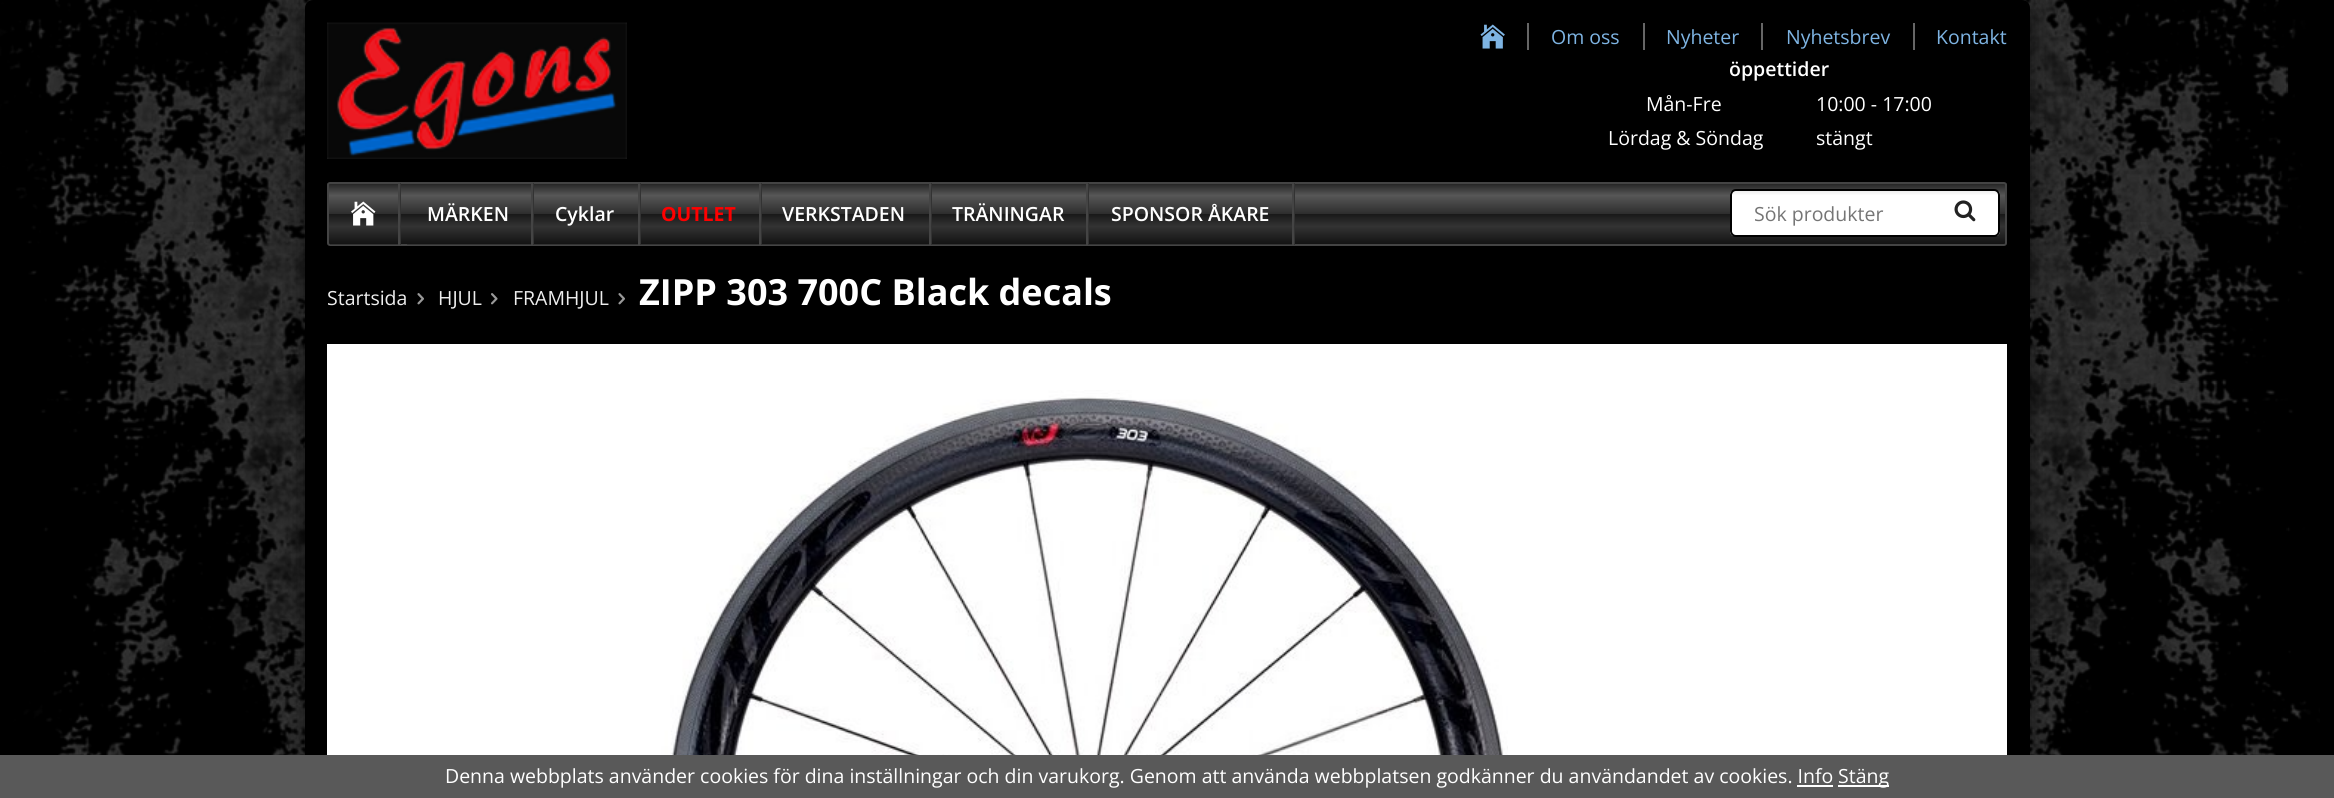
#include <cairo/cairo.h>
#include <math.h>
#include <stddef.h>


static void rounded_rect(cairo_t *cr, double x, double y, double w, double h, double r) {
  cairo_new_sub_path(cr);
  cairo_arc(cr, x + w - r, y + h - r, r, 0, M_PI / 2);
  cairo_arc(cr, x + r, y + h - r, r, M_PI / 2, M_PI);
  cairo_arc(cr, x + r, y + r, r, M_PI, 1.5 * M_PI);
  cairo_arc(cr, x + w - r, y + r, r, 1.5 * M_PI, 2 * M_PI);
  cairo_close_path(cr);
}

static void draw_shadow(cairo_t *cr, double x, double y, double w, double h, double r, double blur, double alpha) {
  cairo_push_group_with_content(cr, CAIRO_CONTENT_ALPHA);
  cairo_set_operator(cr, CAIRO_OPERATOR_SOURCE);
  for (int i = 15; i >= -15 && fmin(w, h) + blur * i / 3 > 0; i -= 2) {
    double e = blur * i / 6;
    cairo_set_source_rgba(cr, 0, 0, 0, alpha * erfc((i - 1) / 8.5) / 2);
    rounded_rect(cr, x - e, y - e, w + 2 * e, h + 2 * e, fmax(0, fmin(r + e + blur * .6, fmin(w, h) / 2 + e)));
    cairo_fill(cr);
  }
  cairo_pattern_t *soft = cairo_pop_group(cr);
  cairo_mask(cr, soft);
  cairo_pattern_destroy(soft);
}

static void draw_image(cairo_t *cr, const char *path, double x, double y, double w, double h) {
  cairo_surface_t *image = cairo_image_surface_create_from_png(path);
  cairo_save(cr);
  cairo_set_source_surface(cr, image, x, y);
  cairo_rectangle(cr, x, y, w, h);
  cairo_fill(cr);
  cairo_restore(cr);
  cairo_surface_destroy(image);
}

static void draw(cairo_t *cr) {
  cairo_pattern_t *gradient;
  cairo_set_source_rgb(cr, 0, 0, 0);
  cairo_paint(cr);
  draw_image(cr, "images/1.png", 0, 0, 2320, 755);
  draw_shadow(cr, 305, 8, 1725, 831, 8, 11, 0.6);
  cairo_set_source_rgb(cr, 0, 0, 0);
  rounded_rect(cr, 305, 0, 1725, 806, 8);
  cairo_fill(cr);
  draw_image(cr, "images/2.png", 327, 22, 300, 137);
  draw_image(cr, "images/3.png", 1480, 24, 25, 25);
  cairo_set_source_rgb(cr, 102 / 255.0, 102 / 255.0, 102 / 255.0);
  cairo_rectangle(cr, 1527, 23, 2, 27);
  cairo_fill(cr);
  cairo_rectangle(cr, 1643, 23, 2, 27);
  cairo_fill(cr);
  cairo_rectangle(cr, 1761, 23, 2, 27);
  cairo_fill(cr);
  cairo_rectangle(cr, 1913, 23, 2, 27);
  cairo_fill(cr);
  cairo_save(cr);
  rounded_rect(cr, 327, 182, 1680, 64, 3);
  cairo_clip(cr);
  gradient = cairo_pattern_create_linear(1167, 183, 1167, 245);
  cairo_pattern_add_color_stop_rgba(gradient, 0, 34 / 255.0, 34 / 255.0, 34 / 255.0, 1);
  cairo_pattern_add_color_stop_rgba(gradient, 0.2, 87 / 255.0, 87 / 255.0, 87 / 255.0, 1);
  cairo_pattern_add_color_stop_rgba(gradient, 0.5, 45 / 255.0, 45 / 255.0, 45 / 255.0, 1);
  cairo_pattern_add_color_stop_rgba(gradient, 0.5, 24 / 255.0, 24 / 255.0, 24 / 255.0, 1);
  cairo_pattern_add_color_stop_rgba(gradient, 0.7, 51 / 255.0, 51 / 255.0, 51 / 255.0, 1);
  cairo_pattern_add_color_stop_rgba(gradient, 1, 17 / 255.0, 17 / 255.0, 17 / 255.0, 1);
  cairo_set_source(cr, gradient);
  cairo_pattern_destroy(gradient);
  cairo_rectangle(cr, 327, 183, 1680, 62);
  cairo_fill(cr);
  cairo_restore(cr);
  rounded_rect(cr, 328, 183, 1678, 62, 2);
  cairo_set_source_rgb(cr, 68 / 255.0, 68 / 255.0, 68 / 255.0);
  cairo_stroke(cr);
  cairo_set_source_rgb(cr, 51 / 255.0, 51 / 255.0, 51 / 255.0);
  cairo_new_path(cr);
  cairo_move_to(cr, 330, 244);
  cairo_line_to(cr, 330, 245);
  cairo_line_to(cr, 401, 245);
  cairo_line_to(cr, 401, 183);
  cairo_line_to(cr, 399, 183);
  cairo_line_to(cr, 399, 244);
  cairo_close_path(cr);
  cairo_fill(cr);
  cairo_set_source_rgb(cr, 68 / 255.0, 68 / 255.0, 68 / 255.0);
  cairo_rectangle(cr, 398, 183, 2, 62);
  cairo_fill(cr);
  draw_image(cr, "images/4.png", 351, 201, 25, 25);
  cairo_set_source_rgb(cr, 51 / 255.0, 51 / 255.0, 51 / 255.0);
  cairo_new_path(cr);
  cairo_move_to(cr, 407, 244);
  cairo_line_to(cr, 407, 245);
  cairo_line_to(cr, 534, 245);
  cairo_line_to(cr, 534, 183);
  cairo_line_to(cr, 532, 183);
  cairo_line_to(cr, 532, 244);
  cairo_close_path(cr);
  cairo_fill(cr);
  cairo_set_source_rgb(cr, 68 / 255.0, 68 / 255.0, 68 / 255.0);
  cairo_rectangle(cr, 531, 183, 2, 62);
  cairo_fill(cr);
  cairo_set_source_rgb(cr, 51 / 255.0, 51 / 255.0, 51 / 255.0);
  cairo_new_path(cr);
  cairo_move_to(cr, 534, 244);
  cairo_line_to(cr, 534, 245);
  cairo_line_to(cr, 641, 245);
  cairo_line_to(cr, 641, 183);
  cairo_line_to(cr, 639, 183);
  cairo_line_to(cr, 639, 244);
  cairo_close_path(cr);
  cairo_fill(cr);
  cairo_set_source_rgb(cr, 68 / 255.0, 68 / 255.0, 68 / 255.0);
  cairo_rectangle(cr, 638, 183, 2, 62);
  cairo_fill(cr);
  cairo_set_source_rgb(cr, 51 / 255.0, 51 / 255.0, 51 / 255.0);
  cairo_new_path(cr);
  cairo_move_to(cr, 641, 244);
  cairo_line_to(cr, 641, 245);
  cairo_line_to(cr, 762, 245);
  cairo_line_to(cr, 762, 183);
  cairo_line_to(cr, 760, 183);
  cairo_line_to(cr, 760, 244);
  cairo_close_path(cr);
  cairo_fill(cr);
  cairo_set_source_rgb(cr, 68 / 255.0, 68 / 255.0, 68 / 255.0);
  cairo_rectangle(cr, 759, 183, 2, 62);
  cairo_fill(cr);
  cairo_set_source_rgb(cr, 51 / 255.0, 51 / 255.0, 51 / 255.0);
  cairo_new_path(cr);
  cairo_move_to(cr, 762, 244);
  cairo_line_to(cr, 762, 245);
  cairo_line_to(cr, 932, 245);
  cairo_line_to(cr, 932, 183);
  cairo_line_to(cr, 930, 183);
  cairo_line_to(cr, 930, 244);
  cairo_close_path(cr);
  cairo_fill(cr);
  cairo_set_source_rgb(cr, 68 / 255.0, 68 / 255.0, 68 / 255.0);
  cairo_rectangle(cr, 929, 183, 2, 62);
  cairo_fill(cr);
  cairo_set_source_rgb(cr, 51 / 255.0, 51 / 255.0, 51 / 255.0);
  cairo_new_path(cr);
  cairo_move_to(cr, 932, 244);
  cairo_line_to(cr, 932, 245);
  cairo_line_to(cr, 1089, 245);
  cairo_line_to(cr, 1089, 183);
  cairo_line_to(cr, 1088, 183);
  cairo_line_to(cr, 1088, 244);
  cairo_close_path(cr);
  cairo_fill(cr);
  cairo_set_source_rgb(cr, 68 / 255.0, 68 / 255.0, 68 / 255.0);
  cairo_rectangle(cr, 1086, 183, 2, 62);
  cairo_fill(cr);
  cairo_set_source_rgb(cr, 51 / 255.0, 51 / 255.0, 51 / 255.0);
  cairo_new_path(cr);
  cairo_move_to(cr, 1089, 244);
  cairo_line_to(cr, 1089, 245);
  cairo_line_to(cr, 1295, 245);
  cairo_line_to(cr, 1295, 183);
  cairo_line_to(cr, 1293, 183);
  cairo_line_to(cr, 1293, 244);
  cairo_close_path(cr);
  cairo_fill(cr);
  cairo_set_source_rgb(cr, 68 / 255.0, 68 / 255.0, 68 / 255.0);
  cairo_rectangle(cr, 1292, 183, 2, 62);
  cairo_fill(cr);
  cairo_save(cr);
  rounded_rect(cr, 1730, 189, 270, 48, 6);
  cairo_clip(cr);
  gradient = cairo_pattern_create_linear(1865, 236, 1865, 191);
  cairo_pattern_add_color_stop_rgba(gradient, 0.9, 1, 1, 1, 1);
  cairo_pattern_add_color_stop_rgba(gradient, 1, 238 / 255.0, 238 / 255.0, 238 / 255.0, 1);
  cairo_set_source(cr, gradient);
  cairo_pattern_destroy(gradient);
  cairo_rectangle(cr, 1730, 191, 270, 45);
  cairo_fill(cr);
  cairo_restore(cr);
  rounded_rect(cr, 1731, 190, 268, 46, 5);
  cairo_set_source_rgb(cr, 0, 0, 0);
  cairo_stroke(cr);
  draw_image(cr, "images/5.png", 1954, 200, 22, 22);
  draw_image(cr, "images/6.png", 417, 293, 7, 12);
  draw_image(cr, "images/7.png", 491, 293, 7, 12);
  draw_image(cr, "images/6.png", 618, 293, 7, 12);
  cairo_set_source_rgb(cr, 1, 1, 1);
  cairo_rectangle(cr, 327, 344, 1680, 411);
  cairo_fill(cr);
  draw_image(cr, "images/8.png", 661, 390, 847, 365);
  cairo_set_source_rgb(cr, 89 / 255.0, 89 / 255.0, 89 / 255.0);
  cairo_rectangle(cr, 0, 755, 2334, 43);
  cairo_fill(cr);
  cairo_set_source_rgb(cr, 1, 1, 1);
  cairo_rectangle(cr, 1838, 785, 51, 2);
  cairo_fill(cr);
  cairo_rectangle(cr, 1797, 785, 36, 2);
  cairo_fill(cr);
  cairo_select_font_face(cr, "Open Sans", CAIRO_FONT_SLANT_NORMAL, CAIRO_FONT_WEIGHT_NORMAL);
  cairo_set_font_size(cr, 19.5);
  cairo_set_source_rgb(cr, 126 / 255.0, 180 / 255.0, 227 / 255.0);
  cairo_move_to(cr, 1551, 44);
  cairo_show_text(cr, "Om oss");
  cairo_move_to(cr, 1666, 44);
  cairo_show_text(cr, "Nyheter");
  cairo_move_to(cr, 1786, 44);
  cairo_show_text(cr, "Nyhetsbrev");
  cairo_move_to(cr, 1936, 44);
  cairo_show_text(cr, "Kontakt");
  cairo_select_font_face(cr, "Open Sans SemiBold", CAIRO_FONT_SLANT_NORMAL, CAIRO_FONT_WEIGHT_NORMAL);
  cairo_set_source_rgb(cr, 1, 1, 1);
  cairo_move_to(cr, 1729, 76);
  cairo_show_text(cr, "öppettider");
  cairo_select_font_face(cr, "Open Sans", CAIRO_FONT_SLANT_NORMAL, CAIRO_FONT_WEIGHT_NORMAL);
  cairo_move_to(cr, 1646, 111);
  cairo_show_text(cr, "Mån-Fre");
  cairo_move_to(cr, 1816, 111);
  cairo_show_text(cr, "10:00 - 17:00");
  cairo_move_to(cr, 1608, 145);
  cairo_show_text(cr, "Lördag & Söndag");
  cairo_move_to(cr, 1816, 145);
  cairo_show_text(cr, "stängt");
  cairo_select_font_face(cr, "Open Sans SemiBold", CAIRO_FONT_SLANT_NORMAL, CAIRO_FONT_WEIGHT_NORMAL);
  cairo_move_to(cr, 427, 221);
  cairo_show_text(cr, "MÄRKEN");
  cairo_move_to(cr, 555, 221);
  cairo_show_text(cr, "Cyklar");
  cairo_select_font_face(cr, "Open Sans", CAIRO_FONT_SLANT_NORMAL, CAIRO_FONT_WEIGHT_BOLD);
  cairo_set_source_rgb(cr, 1, 0, 0);
  cairo_move_to(cr, 661, 221);
  cairo_show_text(cr, "OUTLET");
  cairo_select_font_face(cr, "Open Sans SemiBold", CAIRO_FONT_SLANT_NORMAL, CAIRO_FONT_WEIGHT_NORMAL);
  cairo_set_source_rgb(cr, 1, 1, 1);
  cairo_move_to(cr, 782, 221);
  cairo_show_text(cr, "VERKSTADEN");
  cairo_move_to(cr, 952, 221);
  cairo_show_text(cr, "TRÄNINGAR");
  cairo_move_to(cr, 1111, 221);
  cairo_show_text(cr, "SPONSOR ÅKARE");
  cairo_select_font_face(cr, "Open Sans", CAIRO_FONT_SLANT_NORMAL, CAIRO_FONT_WEIGHT_NORMAL);
  cairo_set_source_rgb(cr, 117 / 255.0, 117 / 255.0, 117 / 255.0);
  cairo_move_to(cr, 1754, 221);
  cairo_show_text(cr, "Sök produkter");
  cairo_set_source_rgb(cr, 238 / 255.0, 238 / 255.0, 238 / 255.0);
  cairo_move_to(cr, 327, 305);
  cairo_show_text(cr, "Startsida");
  cairo_move_to(cr, 438, 305);
  cairo_show_text(cr, "HJUL");
  cairo_move_to(cr, 513, 305);
  cairo_show_text(cr, "FRAMHJUL");
  cairo_select_font_face(cr, "Open Sans", CAIRO_FONT_SLANT_NORMAL, CAIRO_FONT_WEIGHT_BOLD);
  cairo_set_font_size(cr, 36);
  cairo_set_source_rgb(cr, 1, 1, 1);
  cairo_move_to(cr, 639, 305);
  cairo_show_text(cr, "ZIPP 303 700C Black decals");
  cairo_select_font_face(cr, "Open Sans", CAIRO_FONT_SLANT_NORMAL, CAIRO_FONT_WEIGHT_NORMAL);
  cairo_set_font_size(cr, 19.5);
  cairo_move_to(cr, 445, 783);
  cairo_show_text(cr, "Denna webbplats använder cookies för dina inställningar och din varukorg. Genom att använda webbplatsen godkänner du användandet av cookies. Info");
  cairo_move_to(cr, 1838, 783);
  cairo_show_text(cr, "Stäng");
}

int main(void) {
  cairo_surface_t *surface = cairo_image_surface_create(CAIRO_FORMAT_RGB24, 2334, 798);
  cairo_t *cr = cairo_create(surface);
  cairo_font_options_t *options = cairo_font_options_create();
  cairo_font_options_set_hint_metrics(options, CAIRO_HINT_METRICS_OFF);
  cairo_font_options_set_hint_style(options, CAIRO_HINT_STYLE_NONE);
  cairo_set_font_options(cr, options);
  cairo_set_miter_limit(cr, 4);
  draw(cr);
  cairo_surface_write_to_png(surface, "out.png");
  cairo_font_options_destroy(options);
  cairo_destroy(cr);
  cairo_surface_destroy(surface);
  return 0;
}
